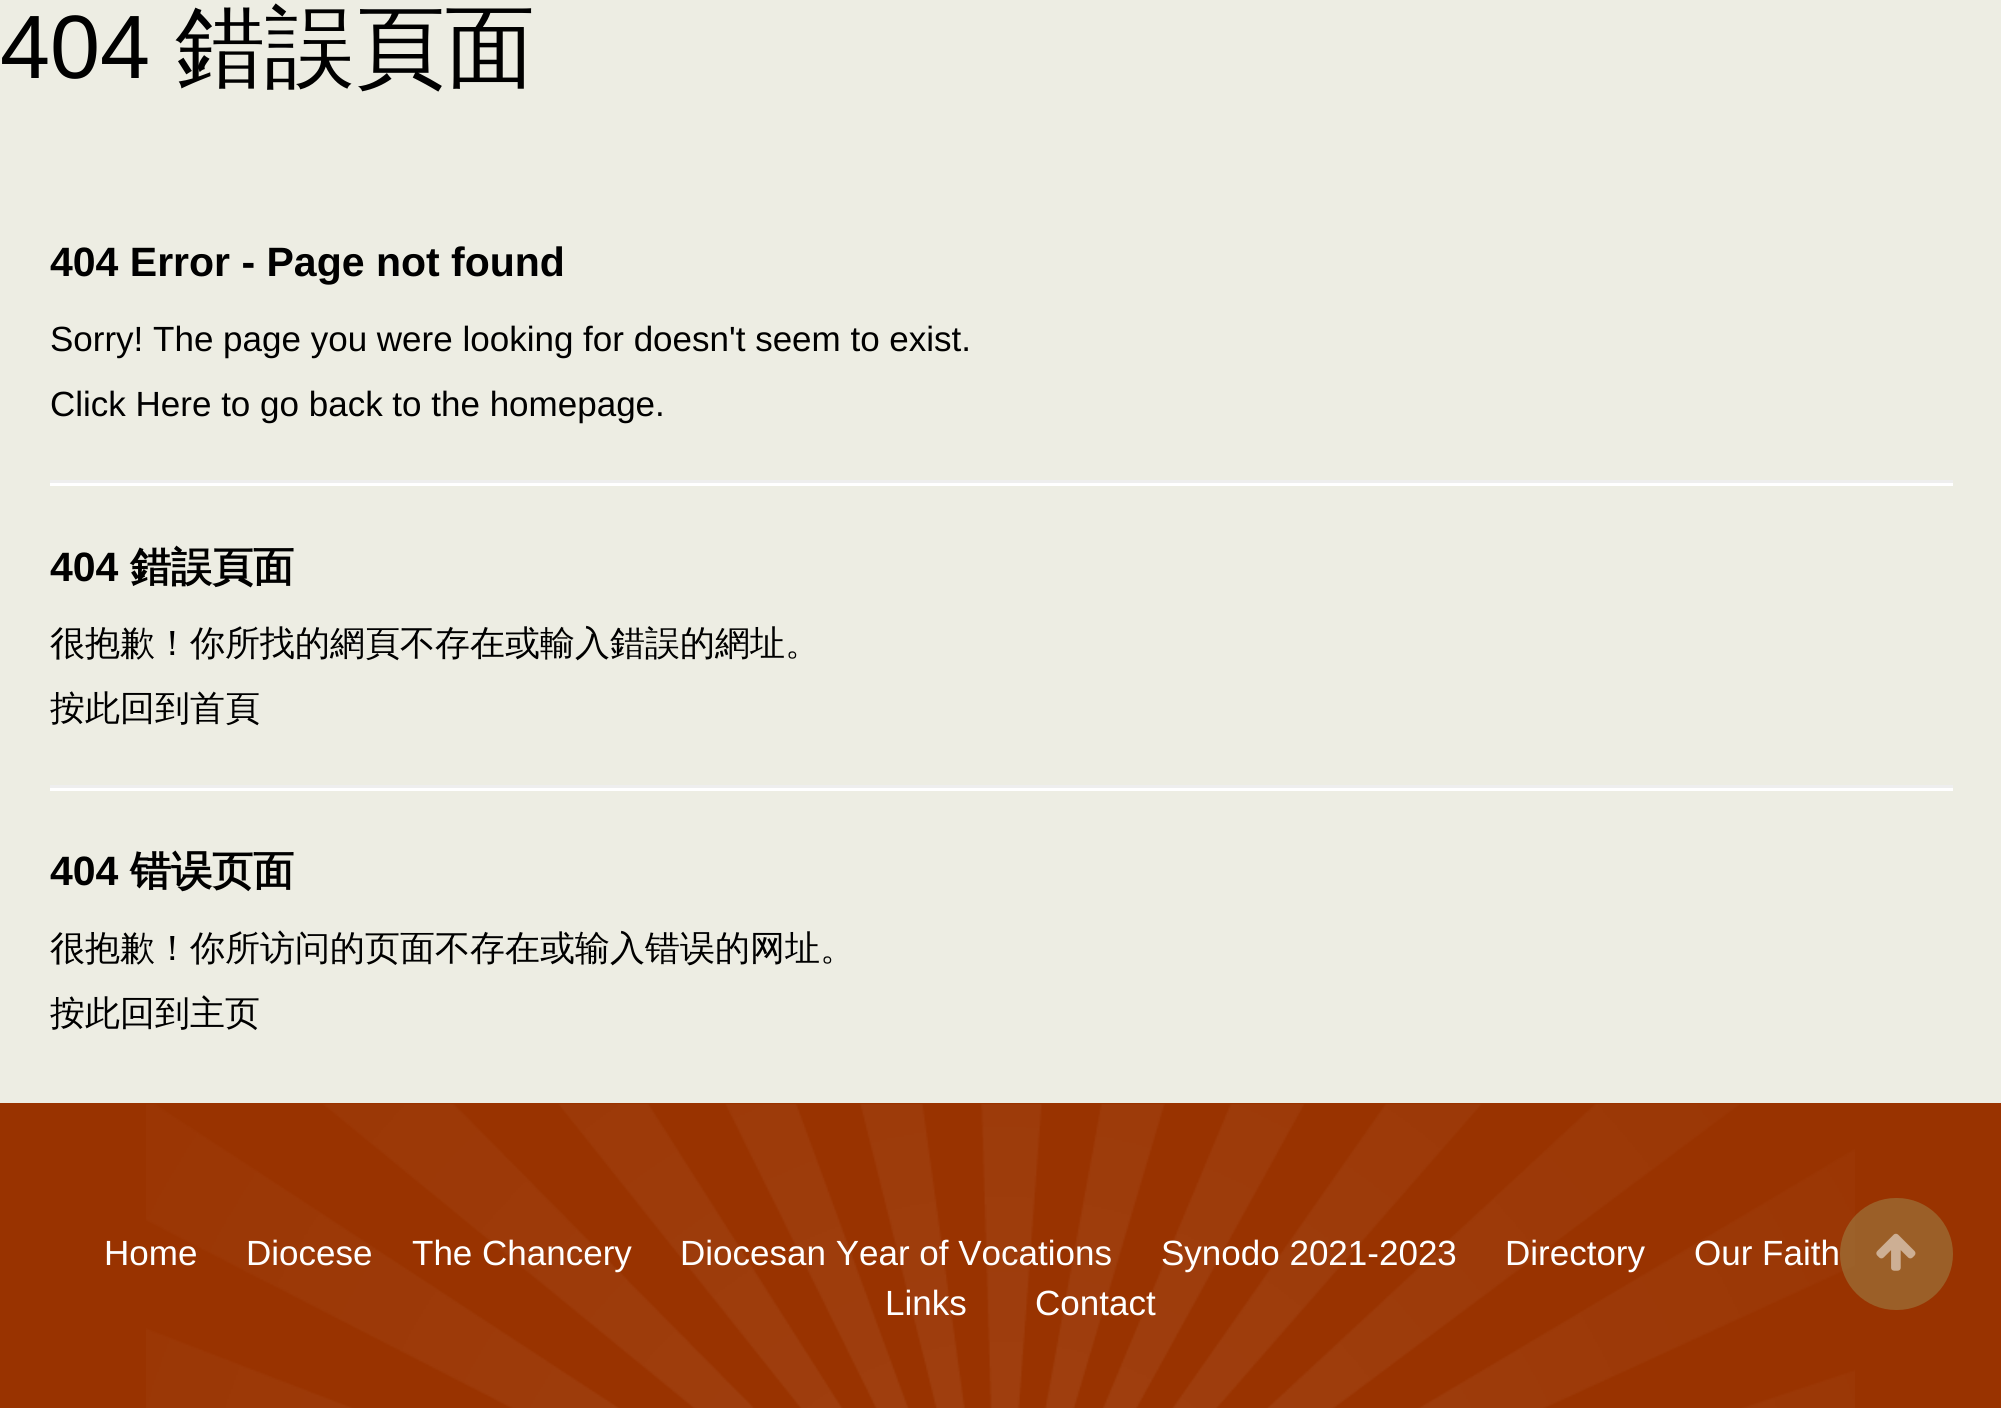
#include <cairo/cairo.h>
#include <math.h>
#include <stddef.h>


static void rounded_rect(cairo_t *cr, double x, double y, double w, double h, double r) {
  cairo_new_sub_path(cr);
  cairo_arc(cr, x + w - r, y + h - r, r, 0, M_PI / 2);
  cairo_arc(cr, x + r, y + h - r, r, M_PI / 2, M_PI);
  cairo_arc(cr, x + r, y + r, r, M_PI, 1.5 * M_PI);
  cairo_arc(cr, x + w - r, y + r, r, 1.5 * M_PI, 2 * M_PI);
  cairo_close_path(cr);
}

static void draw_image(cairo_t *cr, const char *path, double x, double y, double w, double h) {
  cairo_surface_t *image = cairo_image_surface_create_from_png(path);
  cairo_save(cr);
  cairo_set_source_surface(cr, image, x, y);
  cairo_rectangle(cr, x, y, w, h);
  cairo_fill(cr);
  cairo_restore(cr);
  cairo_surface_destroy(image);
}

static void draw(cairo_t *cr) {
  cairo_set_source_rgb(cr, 237 / 255.0, 237 / 255.0, 227 / 255.0);
  cairo_paint(cr);
  cairo_set_source_rgb(cr, 238 / 255.0, 238 / 255.0, 238 / 255.0);
  cairo_rectangle(cr, 50, 480, 1903, 3);
  cairo_fill(cr);
  cairo_set_source_rgb(cr, 1, 1, 1);
  cairo_rectangle(cr, 50, 483, 1903, 3);
  cairo_fill(cr);
  cairo_set_source_rgb(cr, 238 / 255.0, 238 / 255.0, 238 / 255.0);
  cairo_rectangle(cr, 50, 785, 1903, 3);
  cairo_fill(cr);
  cairo_set_source_rgb(cr, 1, 1, 1);
  cairo_rectangle(cr, 50, 788, 1903, 3);
  cairo_fill(cr);
  cairo_set_source_rgb(cr, 153 / 255.0, 51 / 255.0, 0);
  cairo_rectangle(cr, 0, 1103, 2001, 305);
  cairo_fill(cr);
  draw_image(cr, "images/1.png", 146, 1104, 1709, 304);
  cairo_set_source_rgba(cr, 158 / 255.0, 141 / 255.0, 81 / 255.0, 0.5);
  rounded_rect(cr, 1840, 1198, 113, 112, 56);
  cairo_fill(cr);
  draw_image(cr, "images/2.png", 1876, 1233, 40, 38);
  cairo_select_font_face(cr, "Liberation Sans", CAIRO_FONT_SLANT_NORMAL, CAIRO_FONT_WEIGHT_NORMAL);
  cairo_set_font_size(cr, 90);
  cairo_set_source_rgb(cr, 0, 0, 0);
  cairo_move_to(cr, 0, 78);
  cairo_show_text(cr, "404");
  cairo_select_font_face(cr, "WenQuanYi Zen Hei Medium", CAIRO_FONT_SLANT_NORMAL, CAIRO_FONT_WEIGHT_NORMAL);
  cairo_move_to(cr, 175, 78);
  cairo_show_text(cr, "錯誤頁面");
  cairo_select_font_face(cr, "Liberation Sans", CAIRO_FONT_SLANT_NORMAL, CAIRO_FONT_WEIGHT_BOLD);
  cairo_set_font_size(cr, 41);
  cairo_move_to(cr, 50, 276);
  cairo_show_text(cr, "404 Error - Page not found");
  cairo_select_font_face(cr, "Liberation Sans", CAIRO_FONT_SLANT_NORMAL, CAIRO_FONT_WEIGHT_NORMAL);
  cairo_set_font_size(cr, 35);
  cairo_move_to(cr, 50, 351);
  cairo_show_text(cr, "Sorry! The page you were looking for doesn't seem to exist.");
  cairo_move_to(cr, 50, 416);
  cairo_show_text(cr, "Click Here to go back to the homepage.");
  cairo_select_font_face(cr, "Liberation Sans", CAIRO_FONT_SLANT_NORMAL, CAIRO_FONT_WEIGHT_BOLD);
  cairo_set_font_size(cr, 41);
  cairo_move_to(cr, 50, 581);
  cairo_show_text(cr, "404");
  cairo_select_font_face(cr, "WenQuanYi Zen Hei", CAIRO_FONT_SLANT_NORMAL, CAIRO_FONT_WEIGHT_BOLD);
  cairo_move_to(cr, 130, 581);
  cairo_show_text(cr, "錯誤頁面");
  cairo_select_font_face(cr, "WenQuanYi Zen Hei Medium", CAIRO_FONT_SLANT_NORMAL, CAIRO_FONT_WEIGHT_NORMAL);
  cairo_set_font_size(cr, 35);
  cairo_move_to(cr, 50, 655);
  cairo_show_text(cr, "很抱歉！你所找的網頁不存在或輸入錯誤的網址。");
  cairo_move_to(cr, 50, 720);
  cairo_show_text(cr, "按此回到首頁");
  cairo_select_font_face(cr, "Liberation Sans", CAIRO_FONT_SLANT_NORMAL, CAIRO_FONT_WEIGHT_BOLD);
  cairo_set_font_size(cr, 41);
  cairo_move_to(cr, 50, 885);
  cairo_show_text(cr, "404");
  cairo_select_font_face(cr, "WenQuanYi Zen Hei", CAIRO_FONT_SLANT_NORMAL, CAIRO_FONT_WEIGHT_BOLD);
  cairo_move_to(cr, 130, 885);
  cairo_show_text(cr, "错误页面");
  cairo_select_font_face(cr, "WenQuanYi Zen Hei Medium", CAIRO_FONT_SLANT_NORMAL, CAIRO_FONT_WEIGHT_NORMAL);
  cairo_set_font_size(cr, 35);
  cairo_move_to(cr, 50, 960);
  cairo_show_text(cr, "很抱歉！你所访问的页面不存在或输入错误的网址。");
  cairo_move_to(cr, 50, 1025);
  cairo_show_text(cr, "按此回到主页");
  cairo_select_font_face(cr, "Liberation Sans", CAIRO_FONT_SLANT_NORMAL, CAIRO_FONT_WEIGHT_NORMAL);
  cairo_set_source_rgb(cr, 1, 1, 1);
  cairo_move_to(cr, 104, 1265);
  cairo_show_text(cr, "Home");
  cairo_move_to(cr, 246, 1265);
  cairo_show_text(cr, "Diocese");
  cairo_move_to(cr, 412, 1265);
  cairo_show_text(cr, "The Chancery");
  cairo_move_to(cr, 680, 1265);
  cairo_show_text(cr, "Diocesan Year of Vocations");
  cairo_move_to(cr, 1161, 1265);
  cairo_show_text(cr, "Synodo 2021-2023");
  cairo_move_to(cr, 1505, 1265);
  cairo_show_text(cr, "Directory");
  cairo_move_to(cr, 1694, 1265);
  cairo_show_text(cr, "Our Faith");
  cairo_move_to(cr, 885, 1315);
  cairo_show_text(cr, "Links");
  cairo_move_to(cr, 1035, 1315);
  cairo_show_text(cr, "Contact");
}

int main(void) {
  cairo_surface_t *surface = cairo_image_surface_create(CAIRO_FORMAT_RGB24, 2001, 1408);
  cairo_t *cr = cairo_create(surface);
  cairo_font_options_t *options = cairo_font_options_create();
  cairo_font_options_set_hint_metrics(options, CAIRO_HINT_METRICS_OFF);
  cairo_font_options_set_hint_style(options, CAIRO_HINT_STYLE_NONE);
  cairo_set_font_options(cr, options);
  cairo_set_miter_limit(cr, 4);
  draw(cr);
  cairo_surface_write_to_png(surface, "out.png");
  cairo_font_options_destroy(options);
  cairo_destroy(cr);
  cairo_surface_destroy(surface);
  return 0;
}
